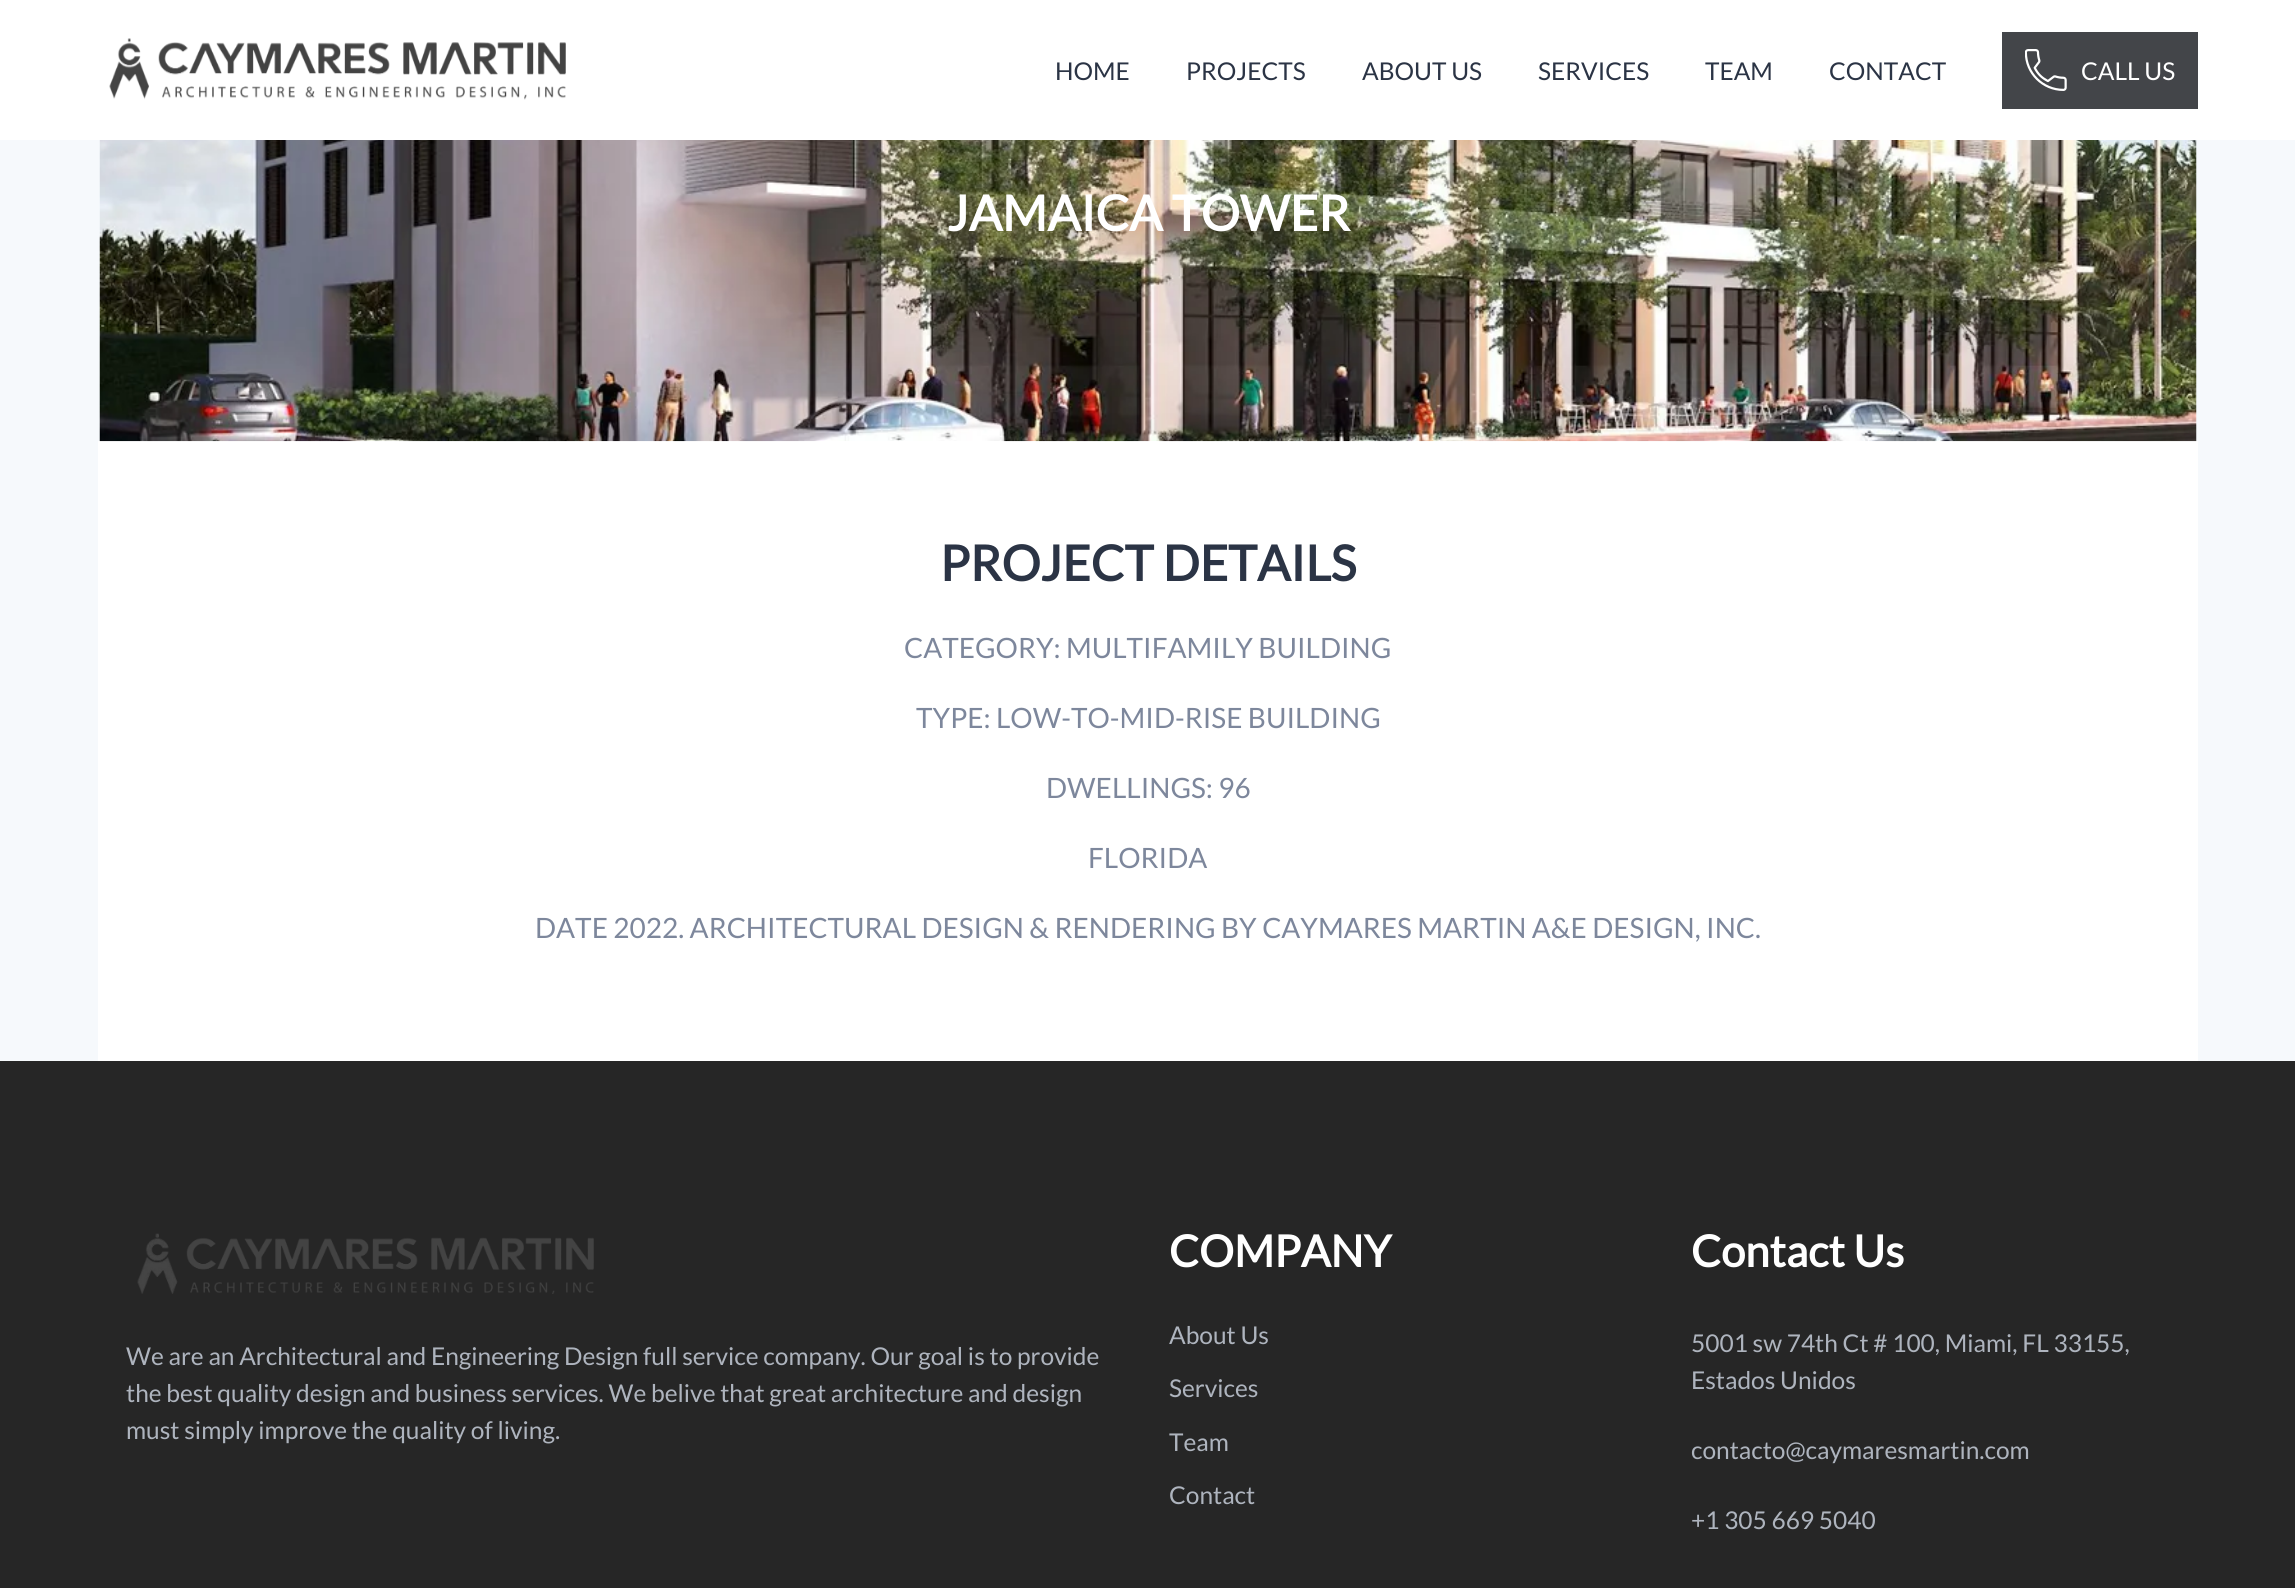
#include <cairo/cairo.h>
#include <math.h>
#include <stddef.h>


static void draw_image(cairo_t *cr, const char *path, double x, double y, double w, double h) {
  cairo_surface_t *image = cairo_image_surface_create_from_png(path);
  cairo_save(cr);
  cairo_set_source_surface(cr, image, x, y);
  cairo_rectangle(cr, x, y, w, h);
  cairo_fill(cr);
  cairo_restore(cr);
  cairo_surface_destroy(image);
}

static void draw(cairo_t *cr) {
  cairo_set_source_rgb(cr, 246 / 255.0, 249 / 255.0, 252 / 255.0);
  cairo_paint(cr);
  cairo_set_source_rgb(cr, 1, 1, 1);
  cairo_rectangle(cr, 0, 0, 2295, 140);
  cairo_fill(cr);
  draw_image(cr, "images/1.png", 109, 38, 457, 62);
  cairo_set_source_rgb(cr, 67 / 255.0, 69 / 255.0, 73 / 255.0);
  cairo_rectangle(cr, 2002, 32, 196, 77);
  cairo_fill(cr);
  draw_image(cr, "images/2.png", 2025, 49, 42, 42);
  cairo_set_source_rgb(cr, 1, 1, 1);
  cairo_rectangle(cr, 98, 441, 2100, 620);
  cairo_fill(cr);
  draw_image(cr, "images/3.png", 99, 140, 2098, 302);
  cairo_set_source_rgb(cr, 38 / 255.0, 38 / 255.0, 38 / 255.0);
  cairo_rectangle(cr, 0, 1061, 2295, 527);
  cairo_fill(cr);
  draw_image(cr, "images/4.png", 137, 1233, 457, 61);
  cairo_select_font_face(cr, "Lato", CAIRO_FONT_SLANT_NORMAL, CAIRO_FONT_WEIGHT_NORMAL);
  cairo_set_font_size(cr, 24.5);
  cairo_set_source_rgb(cr, 43 / 255.0, 52 / 255.0, 69 / 255.0);
  cairo_move_to(cr, 1055, 80);
  cairo_show_text(cr, "HOME");
  cairo_move_to(cr, 1186, 80);
  cairo_show_text(cr, "PROJECTS");
  cairo_move_to(cr, 1362, 80);
  cairo_show_text(cr, "ABOUT US");
  cairo_move_to(cr, 1538, 80);
  cairo_show_text(cr, "SERVICES");
  cairo_move_to(cr, 1705, 80);
  cairo_show_text(cr, "TEAM");
  cairo_move_to(cr, 1829, 80);
  cairo_show_text(cr, "CONTACT");
  cairo_set_source_rgb(cr, 1, 1, 1);
  cairo_move_to(cr, 2081, 80);
  cairo_show_text(cr, "CALL US");
  cairo_select_font_face(cr, "Lato", CAIRO_FONT_SLANT_NORMAL, CAIRO_FONT_WEIGHT_BOLD);
  cairo_set_font_size(cr, 49);
  cairo_move_to(cr, 947, 231);
  cairo_show_text(cr, "JAMAICA TOWER");
  cairo_set_source_rgb(cr, 43 / 255.0, 52 / 255.0, 69 / 255.0);
  cairo_move_to(cr, 940, 581);
  cairo_show_text(cr, "PROJECT DETAILS");
  cairo_select_font_face(cr, "Lato", CAIRO_FONT_SLANT_NORMAL, CAIRO_FONT_WEIGHT_NORMAL);
  cairo_set_font_size(cr, 28);
  cairo_set_source_rgb(cr, 125 / 255.0, 135 / 255.0, 156 / 255.0);
  cairo_move_to(cr, 904, 658);
  cairo_show_text(cr, "CATEGORY: MULTIFAMILY BUILDING");
  cairo_move_to(cr, 916, 728);
  cairo_show_text(cr, "TYPE: LOW-TO-MID-RISE BUILDING");
  cairo_move_to(cr, 1046, 798);
  cairo_show_text(cr, "DWELLINGS: 96");
  cairo_move_to(cr, 1088, 868);
  cairo_show_text(cr, "FLORIDA");
  cairo_move_to(cr, 535, 938);
  cairo_show_text(cr, "DATE 2022. ARCHITECTURAL DESIGN & RENDERING BY CAYMARES MARTIN A&E DESIGN, INC.");
  cairo_set_font_size(cr, 24.5);
  cairo_set_source_rgb(cr, 174 / 255.0, 180 / 255.0, 190 / 255.0);
  cairo_move_to(cr, 126, 1365);
  cairo_show_text(cr, "We are an Architectural and Engineering Design full service company. Our goal is to provide");
  cairo_move_to(cr, 126, 1402);
  cairo_show_text(cr, "the best quality design and business services. We belive that great architecture and design");
  cairo_move_to(cr, 126, 1439);
  cairo_show_text(cr, "must simply improve the quality of living.");
  cairo_select_font_face(cr, "Lato", CAIRO_FONT_SLANT_NORMAL, CAIRO_FONT_WEIGHT_BOLD);
  cairo_set_font_size(cr, 43.75);
  cairo_set_source_rgb(cr, 1, 1, 1);
  cairo_move_to(cr, 1169, 1267);
  cairo_show_text(cr, "COMPANY");
  cairo_select_font_face(cr, "Lato", CAIRO_FONT_SLANT_NORMAL, CAIRO_FONT_WEIGHT_NORMAL);
  cairo_set_font_size(cr, 24.5);
  cairo_set_source_rgb(cr, 174 / 255.0, 180 / 255.0, 190 / 255.0);
  cairo_move_to(cr, 1169, 1344);
  cairo_show_text(cr, "About Us");
  cairo_move_to(cr, 1169, 1397);
  cairo_show_text(cr, "Services");
  cairo_move_to(cr, 1169, 1451);
  cairo_show_text(cr, "Team");
  cairo_move_to(cr, 1169, 1504);
  cairo_show_text(cr, "Contact");
  cairo_select_font_face(cr, "Lato", CAIRO_FONT_SLANT_NORMAL, CAIRO_FONT_WEIGHT_BOLD);
  cairo_set_font_size(cr, 43.75);
  cairo_set_source_rgb(cr, 1, 1, 1);
  cairo_move_to(cr, 1691, 1267);
  cairo_show_text(cr, "Contact Us");
  cairo_select_font_face(cr, "Lato", CAIRO_FONT_SLANT_NORMAL, CAIRO_FONT_WEIGHT_NORMAL);
  cairo_set_font_size(cr, 24.5);
  cairo_set_source_rgb(cr, 174 / 255.0, 180 / 255.0, 190 / 255.0);
  cairo_move_to(cr, 1691, 1352);
  cairo_show_text(cr, "5001 sw 74th Ct # 100, Miami, FL 33155,");
  cairo_move_to(cr, 1691, 1389);
  cairo_show_text(cr, "Estados Unidos");
  cairo_move_to(cr, 1691, 1459);
  cairo_show_text(cr, "contacto@caymaresmartin.com");
  cairo_move_to(cr, 1691, 1529);
  cairo_show_text(cr, "+1 305 669 5040");
}

int main(void) {
  cairo_surface_t *surface = cairo_image_surface_create(CAIRO_FORMAT_RGB24, 2295, 1588);
  cairo_t *cr = cairo_create(surface);
  cairo_font_options_t *options = cairo_font_options_create();
  cairo_font_options_set_hint_metrics(options, CAIRO_HINT_METRICS_OFF);
  cairo_font_options_set_hint_style(options, CAIRO_HINT_STYLE_NONE);
  cairo_set_font_options(cr, options);
  cairo_set_miter_limit(cr, 4);
  draw(cr);
  cairo_surface_write_to_png(surface, "out.png");
  cairo_font_options_destroy(options);
  cairo_destroy(cr);
  cairo_surface_destroy(surface);
  return 0;
}
